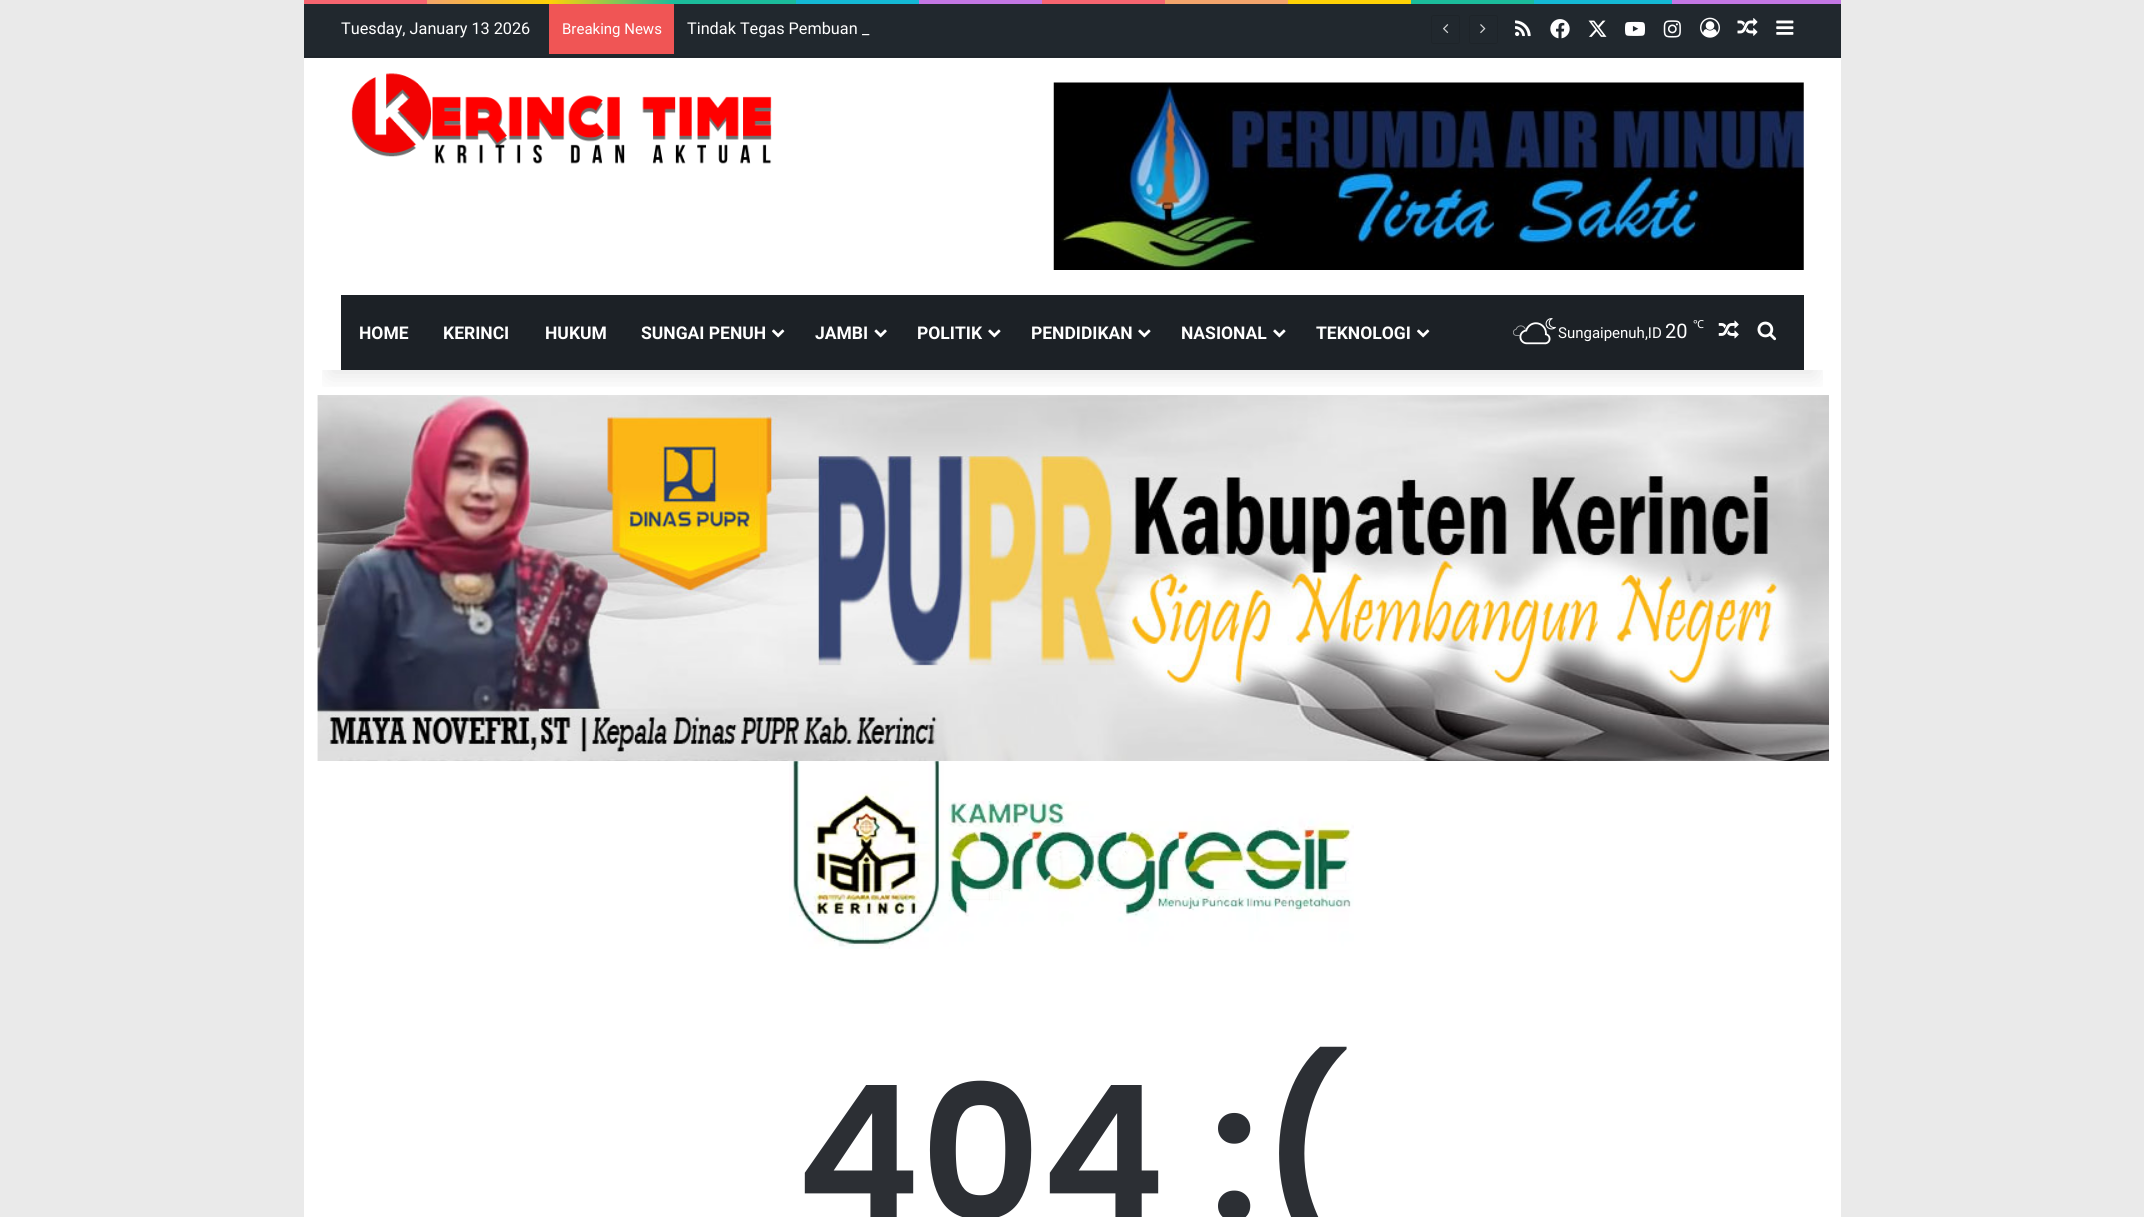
#include <cairo/cairo.h>
#include <math.h>
#include <stddef.h>


static void rounded_rect(cairo_t *cr, double x, double y, double w, double h, double r) {
  cairo_new_sub_path(cr);
  cairo_arc(cr, x + w - r, y + h - r, r, 0, M_PI / 2);
  cairo_arc(cr, x + r, y + h - r, r, M_PI / 2, M_PI);
  cairo_arc(cr, x + r, y + r, r, M_PI, 1.5 * M_PI);
  cairo_arc(cr, x + w - r, y + r, r, 1.5 * M_PI, 2 * M_PI);
  cairo_close_path(cr);
}

static void draw_shadow(cairo_t *cr, double x, double y, double w, double h, double r, double blur, double alpha) {
  cairo_push_group_with_content(cr, CAIRO_CONTENT_ALPHA);
  cairo_set_operator(cr, CAIRO_OPERATOR_SOURCE);
  for (int i = 15; i >= -15 && fmin(w, h) + blur * i / 3 > 0; i -= 2) {
    double e = blur * i / 6;
    cairo_set_source_rgba(cr, 0, 0, 0, alpha * erfc((i - 1) / 8.5) / 2);
    rounded_rect(cr, x - e, y - e, w + 2 * e, h + 2 * e, fmax(0, fmin(r + e + blur * .6, fmin(w, h) / 2 + e)));
    cairo_fill(cr);
  }
  cairo_pattern_t *soft = cairo_pop_group(cr);
  cairo_mask(cr, soft);
  cairo_pattern_destroy(soft);
}

static void draw_image(cairo_t *cr, const char *path, double x, double y, double w, double h) {
  cairo_surface_t *image = cairo_image_surface_create_from_png(path);
  cairo_save(cr);
  cairo_set_source_surface(cr, image, x, y);
  cairo_rectangle(cr, x, y, w, h);
  cairo_fill(cr);
  cairo_restore(cr);
  cairo_surface_destroy(image);
}

static void draw(cairo_t *cr) {
  cairo_pattern_t *gradient;
  cairo_set_source_rgb(cr, 234 / 255.0, 234 / 255.0, 234 / 255.0);
  cairo_paint(cr);
  cairo_set_source_rgb(cr, 1, 1, 1);
  cairo_rectangle(cr, 304, 58, 1537, 1159);
  cairo_fill(cr);
  gradient = cairo_pattern_create_linear(304, 1.9, 1841, 1.9);
  cairo_pattern_add_color_stop_rgba(gradient, 0, 247 / 255.0, 101 / 255.0, 112 / 255.0, 1);
  cairo_pattern_add_color_stop_rgba(gradient, 0.08, 247 / 255.0, 101 / 255.0, 112 / 255.0, 1);
  cairo_pattern_add_color_stop_rgba(gradient, 0.08, 243 / 255.0, 164 / 255.0, 107 / 255.0, 1);
  cairo_pattern_add_color_stop_rgba(gradient, 0.16, 1, 210 / 255.0, 5 / 255.0, 1);
  cairo_pattern_add_color_stop_rgba(gradient, 0.24, 27 / 255.0, 188 / 255.0, 155 / 255.0, 1);
  cairo_pattern_add_color_stop_rgba(gradient, 0.32, 27 / 255.0, 188 / 255.0, 155 / 255.0, 1);
  cairo_pattern_add_color_stop_rgba(gradient, 0.32, 20 / 255.0, 185 / 255.0, 213 / 255.0, 1);
  cairo_pattern_add_color_stop_rgba(gradient, 0.4, 20 / 255.0, 185 / 255.0, 213 / 255.0, 1);
  cairo_pattern_add_color_stop_rgba(gradient, 0.4, 195 / 255.0, 119 / 255.0, 228 / 255.0, 1);
  cairo_pattern_add_color_stop_rgba(gradient, 0.48, 195 / 255.0, 119 / 255.0, 228 / 255.0, 1);
  cairo_pattern_add_color_stop_rgba(gradient, 0.48, 247 / 255.0, 101 / 255.0, 112 / 255.0, 1);
  cairo_pattern_add_color_stop_rgba(gradient, 0.56, 247 / 255.0, 101 / 255.0, 112 / 255.0, 1);
  cairo_pattern_add_color_stop_rgba(gradient, 0.56, 243 / 255.0, 164 / 255.0, 107 / 255.0, 1);
  cairo_pattern_add_color_stop_rgba(gradient, 0.64, 243 / 255.0, 164 / 255.0, 107 / 255.0, 1);
  cairo_pattern_add_color_stop_rgba(gradient, 0.64, 1, 210 / 255.0, 5 / 255.0, 1);
  cairo_pattern_add_color_stop_rgba(gradient, 0.72, 1, 210 / 255.0, 5 / 255.0, 1);
  cairo_pattern_add_color_stop_rgba(gradient, 0.72, 27 / 255.0, 188 / 255.0, 155 / 255.0, 1);
  cairo_pattern_add_color_stop_rgba(gradient, 0.8, 27 / 255.0, 188 / 255.0, 155 / 255.0, 1);
  cairo_pattern_add_color_stop_rgba(gradient, 0.8, 20 / 255.0, 185 / 255.0, 213 / 255.0, 1);
  cairo_pattern_add_color_stop_rgba(gradient, 0.89, 20 / 255.0, 185 / 255.0, 213 / 255.0, 1);
  cairo_pattern_add_color_stop_rgba(gradient, 0.89, 195 / 255.0, 119 / 255.0, 228 / 255.0, 1);
  cairo_pattern_add_color_stop_rgba(gradient, 1, 195 / 255.0, 119 / 255.0, 228 / 255.0, 1);
  cairo_set_source(cr, gradient);
  cairo_pattern_destroy(gradient);
  cairo_rectangle(cr, 304, 0, 1537, 4);
  cairo_fill(cr);
  draw_image(cr, "images/22.png", 317, 395, 1512, 366);
  cairo_save(cr);
  cairo_rectangle(cr, 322, 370, 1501, 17);
  cairo_clip(cr);
  cairo_set_source_rgb(cr, 0, 0, 0);
  draw_shadow(cr, 329, 60, 1487, 316, 0, 12.5, 0.1);
  cairo_restore(cr);
  cairo_set_source_rgb(cr, 33 / 255.0, 40 / 255.0, 46 / 255.0);
  cairo_rectangle(cr, 304, 4, 1537, 54);
  cairo_fill(cr);
  cairo_set_source_rgb(cr, 30 / 255.0, 36 / 255.0, 41 / 255.0);
  cairo_rectangle(cr, 304, 56, 1537, 1);
  cairo_fill(cr);
  cairo_set_source_rgb(cr, 240 / 255.0, 85 / 255.0, 85 / 255.0);
  cairo_rectangle(cr, 549, 4, 125, 50);
  cairo_fill(cr);
  rounded_rect(cr, 1431.5, 15.5, 28, 28, 2);
  cairo_set_source_rgb(cr, 30 / 255.0, 36 / 255.0, 41 / 255.0);
  cairo_set_line_width(cr, 1);
  cairo_stroke(cr);
  draw_image(cr, "images/1.png", 1443, 24, 6, 10);
  rounded_rect(cr, 1469.5, 15.5, 28, 28, 2);
  cairo_stroke(cr);
  draw_image(cr, "images/2.png", 1480, 24, 6, 10);
  draw_image(cr, "images/3.png", 1515, 20, 16, 17);
  draw_image(cr, "images/4.png", 1550, 19, 20, 20);
  draw_image(cr, "images/5.png", 1588, 20, 19, 17);
  draw_image(cr, "images/6.png", 1625, 21, 20, 15);
  draw_image(cr, "images/7.png", 1663, 20, 18, 18);
  draw_image(cr, "images/8.png", 1700, 17, 20, 21);
  draw_image(cr, "images/9.png", 1737, 18, 21, 18);
  draw_image(cr, "images/10.png", 1776, 20, 18, 15);
  draw_image(cr, "images/11.png", 351, 73, 421, 91);
  draw_image(cr, "images/12.png", 1053, 82, 751, 188);
  cairo_set_source_rgb(cr, 28 / 255.0, 33 / 255.0, 38 / 255.0);
  cairo_rectangle(cr, 341, 295, 1463, 75);
  cairo_fill(cr);
  draw_image(cr, "images/13.png", 772, 329, 13, 9);
  draw_image(cr, "images/14.png", 874, 329, 13, 9);
  draw_image(cr, "images/15.png", 988, 329, 13, 9);
  draw_image(cr, "images/15.png", 1138, 329, 13, 9);
  draw_image(cr, "images/15.png", 1273, 329, 13, 9);
  draw_image(cr, "images/13.png", 1417, 329, 13, 9);
  draw_image(cr, "images/16.png", 1545, 318, 11, 12);
  draw_image(cr, "images/18.png", 1513, 325, 13, 11);
  draw_image(cr, "images/19.png", 1519, 329, 9, 7);
  draw_image(cr, "images/17.png", 1519, 322, 32, 23);
  draw_image(cr, "images/20.png", 1718, 320, 21, 19);
  draw_image(cr, "images/21.png", 1757, 321, 20, 20);
  draw_image(cr, "images/23.png", 789, 761, 565, 188);
  cairo_select_font_face(cr, "Roboto", CAIRO_FONT_SLANT_NORMAL, CAIRO_FONT_WEIGHT_NORMAL);
  cairo_set_font_size(cr, 16.25);
  cairo_set_source_rgb(cr, 1, 1, 1);
  cairo_move_to(cr, 341, 34);
  cairo_show_text(cr, "Tuesday, January 13 2026");
  cairo_set_font_size(cr, 15);
  cairo_move_to(cr, 562, 34);
  cairo_show_text(cr, "Breaking News");
  cairo_set_font_size(cr, 16.25);
  cairo_move_to(cr, 687, 34);
  cairo_show_text(cr, "Tindak Tegas Pembuan");
  cairo_move_to(cr, 862, 34);
  cairo_show_text(cr, "_");
  cairo_select_font_face(cr, "Roboto", CAIRO_FONT_SLANT_NORMAL, CAIRO_FONT_WEIGHT_BOLD);
  cairo_set_font_size(cr, 17.5);
  cairo_move_to(cr, 359, 339);
  cairo_show_text(cr, "HOME");
  cairo_move_to(cr, 443, 339);
  cairo_show_text(cr, "KERINCI");
  cairo_move_to(cr, 545, 339);
  cairo_show_text(cr, "HUKUM");
  cairo_move_to(cr, 641, 339);
  cairo_show_text(cr, "SUNGAI PENUH");
  cairo_move_to(cr, 815, 339);
  cairo_show_text(cr, "JAMBI");
  cairo_move_to(cr, 917, 339);
  cairo_show_text(cr, "POLITIK");
  cairo_move_to(cr, 1031, 339);
  cairo_show_text(cr, "PENDIDIKAN");
  cairo_move_to(cr, 1181, 339);
  cairo_show_text(cr, "NASIONAL");
  cairo_move_to(cr, 1316, 339);
  cairo_show_text(cr, "TEKNOLOGI");
  cairo_select_font_face(cr, "Roboto", CAIRO_FONT_SLANT_NORMAL, CAIRO_FONT_WEIGHT_NORMAL);
  cairo_set_font_size(cr, 15);
  cairo_move_to(cr, 1558, 338);
  cairo_show_text(cr, "Sungaipenuh,ID");
  cairo_set_font_size(cr, 20);
  cairo_move_to(cr, 1665, 338);
  cairo_show_text(cr, "20");
  cairo_select_font_face(cr, "Noto Sans", CAIRO_FONT_SLANT_NORMAL, CAIRO_FONT_WEIGHT_NORMAL);
  cairo_set_font_size(cr, 11);
  cairo_move_to(cr, 1693, 328);
  cairo_show_text(cr, "℃");
  cairo_select_font_face(cr, "Poppins SemiBold", CAIRO_FONT_SLANT_NORMAL, CAIRO_FONT_WEIGHT_NORMAL);
  cairo_set_font_size(cr, 187.5);
  cairo_set_source_rgb(cr, 44 / 255.0, 47 / 255.0, 52 / 255.0);
  cairo_move_to(cr, 796, 1220);
  cairo_show_text(cr, "404 :(");
}

int main(void) {
  cairo_surface_t *surface = cairo_image_surface_create(CAIRO_FORMAT_RGB24, 2144, 1217);
  cairo_t *cr = cairo_create(surface);
  cairo_font_options_t *options = cairo_font_options_create();
  cairo_font_options_set_hint_metrics(options, CAIRO_HINT_METRICS_OFF);
  cairo_font_options_set_hint_style(options, CAIRO_HINT_STYLE_NONE);
  cairo_set_font_options(cr, options);
  cairo_set_miter_limit(cr, 4);
  draw(cr);
  cairo_surface_write_to_png(surface, "out.png");
  cairo_font_options_destroy(options);
  cairo_destroy(cr);
  cairo_surface_destroy(surface);
  return 0;
}
